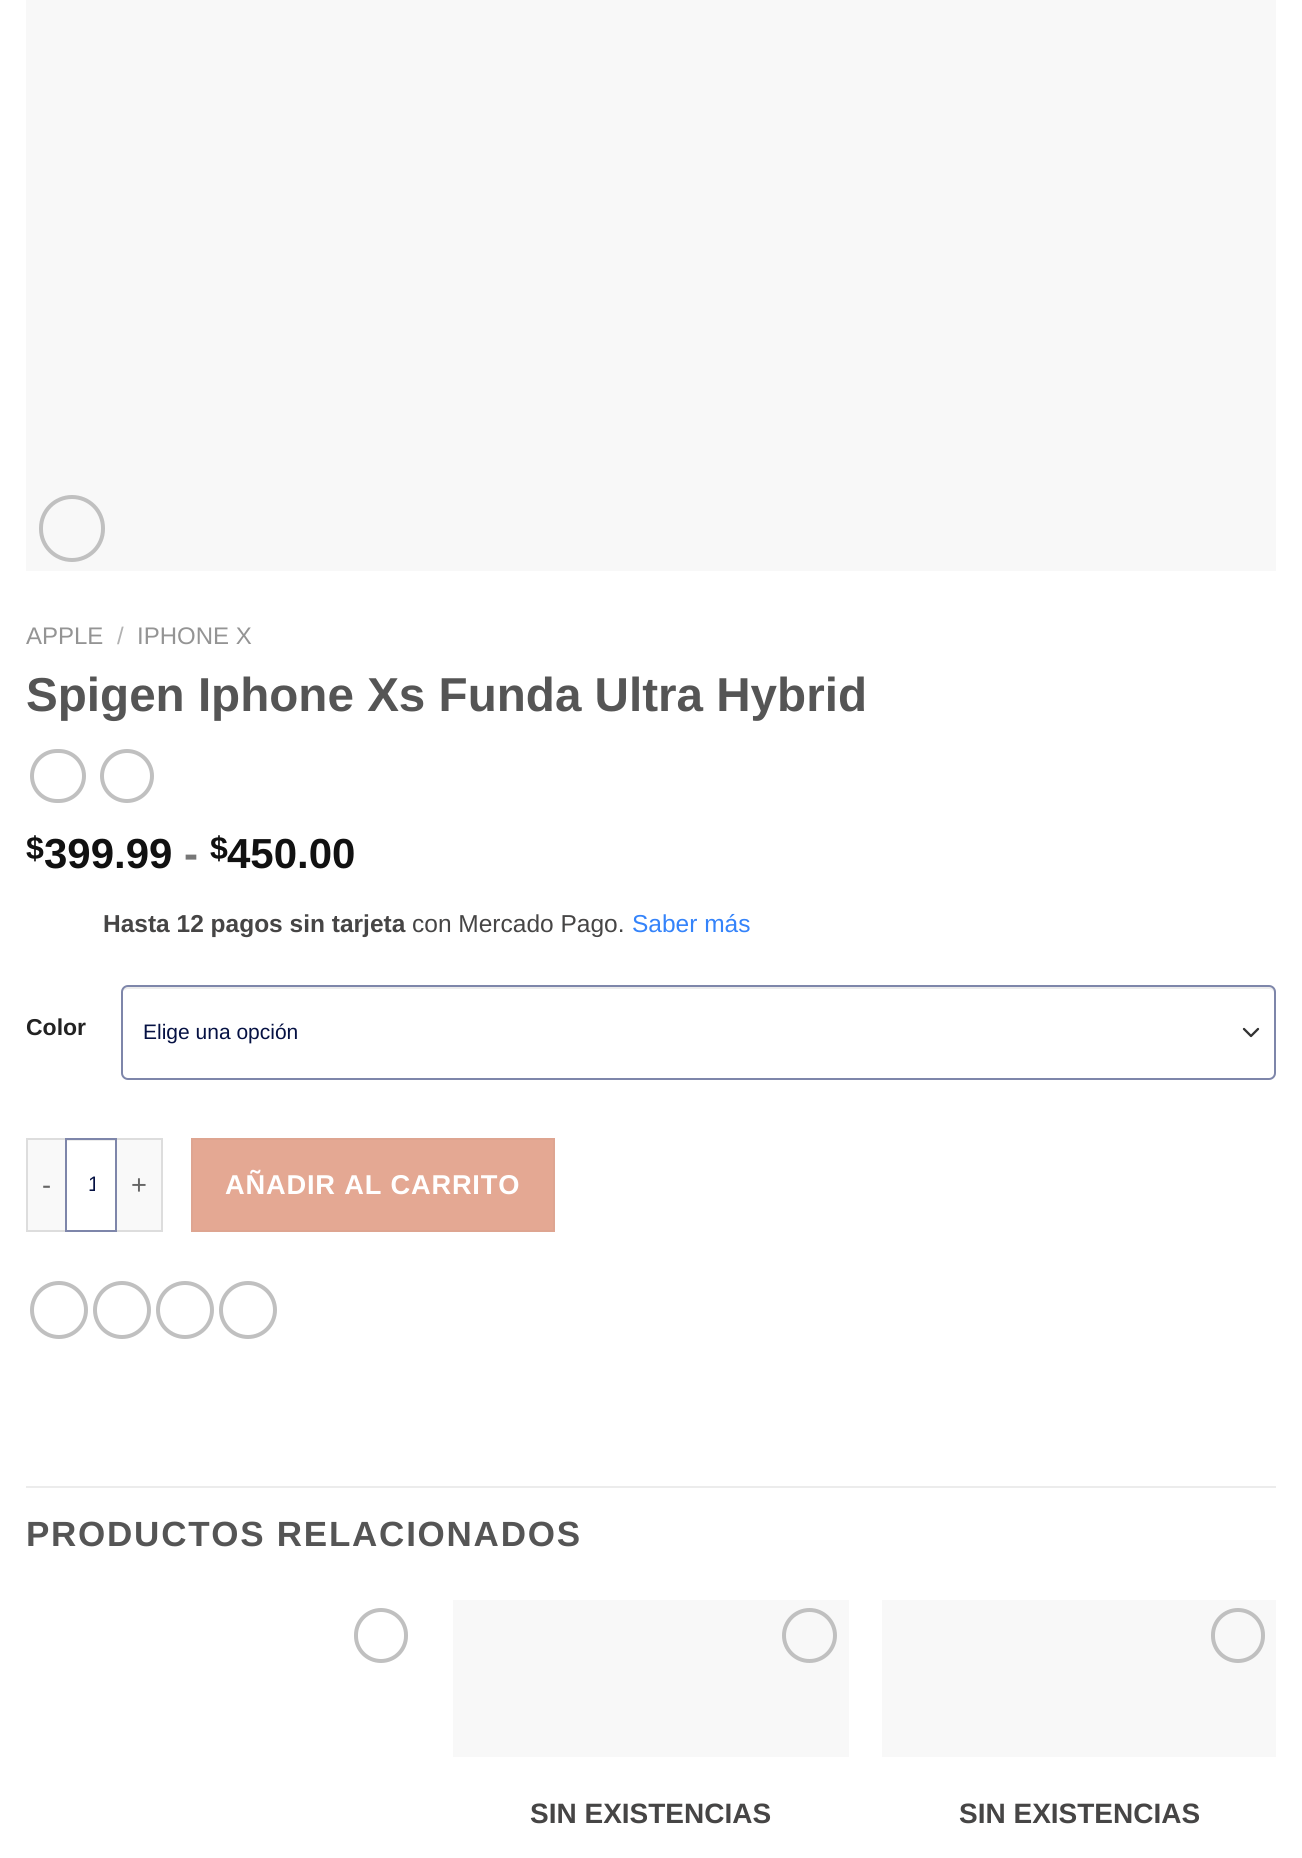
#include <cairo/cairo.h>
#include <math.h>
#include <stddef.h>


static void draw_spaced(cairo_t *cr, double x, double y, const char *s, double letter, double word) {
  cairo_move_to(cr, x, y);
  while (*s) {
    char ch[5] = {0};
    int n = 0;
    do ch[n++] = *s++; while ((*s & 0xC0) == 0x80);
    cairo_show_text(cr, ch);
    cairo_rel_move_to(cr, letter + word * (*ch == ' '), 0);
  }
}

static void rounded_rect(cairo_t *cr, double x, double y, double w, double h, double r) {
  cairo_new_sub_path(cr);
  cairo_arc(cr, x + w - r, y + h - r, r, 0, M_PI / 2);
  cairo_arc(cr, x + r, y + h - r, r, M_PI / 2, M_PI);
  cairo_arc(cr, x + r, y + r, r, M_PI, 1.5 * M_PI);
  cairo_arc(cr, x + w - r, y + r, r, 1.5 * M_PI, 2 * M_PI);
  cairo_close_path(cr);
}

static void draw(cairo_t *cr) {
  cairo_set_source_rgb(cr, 1, 1, 1);
  cairo_paint(cr);
  cairo_set_source_rgb(cr, 248 / 255.0, 248 / 255.0, 248 / 255.0);
  cairo_rectangle(cr, 26, 0, 1250, 571);
  cairo_fill(cr);
  rounded_rect(cr, 41, 497, 62, 63, 31);
  cairo_set_source_rgb(cr, 192 / 255.0, 192 / 255.0, 192 / 255.0);
  cairo_set_line_width(cr, 4);
  cairo_stroke(cr);
  rounded_rect(cr, 32, 751, 52, 50, 25);
  cairo_stroke(cr);
  cairo_arc(cr, 127, 776, 25, 0, 2 * M_PI);
  cairo_stroke(cr);
  cairo_new_path(cr);
  cairo_move_to(cr, 1244, 1029);
  cairo_line_to(cr, 1251, 1036);
  cairo_line_to(cr, 1258, 1029);
  cairo_set_source_rgb(cr, 51 / 255.0, 51 / 255.0, 51 / 255.0);
  cairo_set_line_width(cr, 2.3);
  cairo_set_line_cap(cr, CAIRO_LINE_CAP_ROUND);
  cairo_set_line_join(cr, CAIRO_LINE_JOIN_ROUND);
  cairo_stroke(cr);
  cairo_set_source_rgb(cr, 236 / 255.0, 236 / 255.0, 236 / 255.0);
  cairo_new_path(cr);
  cairo_move_to(cr, 128, 989);
  cairo_line_to(cr, 1269, 989);
  cairo_curve_to(cr, 1272, 989, 1274, 991, 1274, 994);
  cairo_line_to(cr, 1274, 992);
  cairo_curve_to(cr, 1274, 989, 1272, 987, 1269, 987);
  cairo_line_to(cr, 128, 987);
  cairo_curve_to(cr, 126, 987, 123, 989, 123, 991);
  cairo_curve_to(cr, 124, 990, 126, 989, 128, 989);
  cairo_close_path(cr);
  cairo_fill(cr);
  rounded_rect(cr, 122, 986, 1153, 93, 6);
  cairo_set_source_rgb(cr, 126 / 255.0, 134 / 255.0, 170 / 255.0);
  cairo_set_line_width(cr, 2);
  cairo_set_line_cap(cr, CAIRO_LINE_CAP_BUTT);
  cairo_set_line_join(cr, CAIRO_LINE_JOIN_MITER);
  cairo_stroke(cr);
  cairo_set_source_rgb(cr, 249 / 255.0, 249 / 255.0, 249 / 255.0);
  cairo_rectangle(cr, 28, 1140, 37, 90);
  cairo_fill(cr);
  cairo_set_source_rgb(cr, 221 / 255.0, 221 / 255.0, 221 / 255.0);
  cairo_rectangle(cr, 26, 1138, 39, 2);
  cairo_fill(cr);
  cairo_rectangle(cr, 26, 1230, 39, 2);
  cairo_fill(cr);
  cairo_rectangle(cr, 26, 1138, 2, 94);
  cairo_fill(cr);
  cairo_set_source_rgb(cr, 236 / 255.0, 236 / 255.0, 236 / 255.0);
  cairo_rectangle(cr, 67, 1140, 49, 1);
  cairo_fill(cr);
  cairo_rectangle(cr, 66, 1139, 50, 92);
  cairo_set_source_rgb(cr, 126 / 255.0, 134 / 255.0, 170 / 255.0);
  cairo_stroke(cr);
  cairo_set_source_rgb(cr, 249 / 255.0, 249 / 255.0, 249 / 255.0);
  cairo_rectangle(cr, 117, 1140, 44, 90);
  cairo_fill(cr);
  cairo_set_source_rgb(cr, 221 / 255.0, 221 / 255.0, 221 / 255.0);
  cairo_rectangle(cr, 117, 1138, 46, 2);
  cairo_fill(cr);
  cairo_rectangle(cr, 161, 1138, 2, 94);
  cairo_fill(cr);
  cairo_rectangle(cr, 117, 1230, 46, 2);
  cairo_fill(cr);
  cairo_set_source_rgb(cr, 228 / 255.0, 168 / 255.0, 147 / 255.0);
  cairo_rectangle(cr, 192, 1139, 362, 92);
  cairo_fill_preserve(cr);
  cairo_set_source_rgb(cr, 222 / 255.0, 165 / 255.0, 145 / 255.0);
  cairo_stroke(cr);
  cairo_arc(cr, 59, 1310, 27, 0, 2 * M_PI);
  cairo_set_source_rgb(cr, 192 / 255.0, 192 / 255.0, 192 / 255.0);
  cairo_set_line_width(cr, 4);
  cairo_stroke(cr);
  cairo_arc(cr, 122, 1310, 27, 0, 2 * M_PI);
  cairo_stroke(cr);
  cairo_arc(cr, 185, 1310, 27, 0, 2 * M_PI);
  cairo_stroke(cr);
  cairo_arc(cr, 248, 1310, 27, 0, 2 * M_PI);
  cairo_stroke(cr);
  cairo_set_source_rgb(cr, 236 / 255.0, 236 / 255.0, 236 / 255.0);
  cairo_rectangle(cr, 26, 1486, 1250, 2);
  cairo_fill(cr);
  rounded_rect(cr, 356, 1610, 50, 51, 25);
  cairo_set_source_rgb(cr, 192 / 255.0, 192 / 255.0, 192 / 255.0);
  cairo_stroke(cr);
  cairo_set_source_rgb(cr, 248 / 255.0, 248 / 255.0, 248 / 255.0);
  cairo_rectangle(cr, 453, 1600, 396, 157);
  cairo_fill(cr);
  cairo_arc(cr, 809.5, 1635.5, 25.5, 0, 2 * M_PI);
  cairo_set_source_rgb(cr, 192 / 255.0, 192 / 255.0, 192 / 255.0);
  cairo_stroke(cr);
  cairo_set_source_rgb(cr, 248 / 255.0, 248 / 255.0, 248 / 255.0);
  cairo_rectangle(cr, 882, 1600, 394, 157);
  cairo_fill(cr);
  rounded_rect(cr, 1213, 1610, 50, 51, 25);
  cairo_set_source_rgb(cr, 192 / 255.0, 192 / 255.0, 192 / 255.0);
  cairo_stroke(cr);
  cairo_select_font_face(cr, "Liberation Sans", CAIRO_FONT_SLANT_NORMAL, CAIRO_FONT_WEIGHT_NORMAL);
  cairo_set_font_size(cr, 24);
  cairo_set_source_rgb(cr, 148 / 255.0, 148 / 255.0, 148 / 255.0);
  cairo_move_to(cr, 26, 644);
  cairo_show_text(cr, "APPLE");
  cairo_set_source_rgb(cr, 178 / 255.0, 178 / 255.0, 178 / 255.0);
  cairo_move_to(cr, 117, 644);
  cairo_show_text(cr, "/");
  cairo_set_source_rgb(cr, 148 / 255.0, 148 / 255.0, 148 / 255.0);
  cairo_move_to(cr, 137, 644);
  cairo_show_text(cr, "IPHONE X");
  cairo_select_font_face(cr, "Liberation Sans", CAIRO_FONT_SLANT_NORMAL, CAIRO_FONT_WEIGHT_BOLD);
  cairo_set_font_size(cr, 47.6);
  cairo_set_source_rgb(cr, 85 / 255.0, 85 / 255.0, 85 / 255.0);
  cairo_move_to(cr, 26, 711);
  cairo_show_text(cr, "Spigen Iphone Xs Funda Ultra Hybrid");
  cairo_set_font_size(cr, 32);
  cairo_set_source_rgb(cr, 17 / 255.0, 17 / 255.0, 17 / 255.0);
  cairo_move_to(cr, 26, 859);
  cairo_show_text(cr, "$");
  cairo_set_font_size(cr, 42);
  cairo_move_to(cr, 44, 868);
  cairo_show_text(cr, "399.99");
  cairo_set_source_rgb(cr, 119 / 255.0, 119 / 255.0, 119 / 255.0);
  cairo_move_to(cr, 184, 868);
  cairo_show_text(cr, "-");
  cairo_set_font_size(cr, 32);
  cairo_set_source_rgb(cr, 17 / 255.0, 17 / 255.0, 17 / 255.0);
  cairo_move_to(cr, 210, 859);
  cairo_show_text(cr, "$");
  cairo_set_font_size(cr, 42);
  cairo_move_to(cr, 227, 868);
  cairo_show_text(cr, "450.00");
  cairo_set_font_size(cr, 24.5);
  cairo_set_source_rgb(cr, 70 / 255.0, 69 / 255.0, 69 / 255.0);
  cairo_move_to(cr, 103, 932);
  cairo_show_text(cr, "Hasta 12 pagos sin tarjeta");
  cairo_select_font_face(cr, "Liberation Sans", CAIRO_FONT_SLANT_NORMAL, CAIRO_FONT_WEIGHT_NORMAL);
  cairo_move_to(cr, 412, 932);
  cairo_show_text(cr, "con Mercado Pago.");
  cairo_set_source_rgb(cr, 52 / 255.0, 131 / 255.0, 250 / 255.0);
  cairo_move_to(cr, 632, 932);
  cairo_show_text(cr, "Saber más");
  cairo_select_font_face(cr, "Liberation Sans", CAIRO_FONT_SLANT_NORMAL, CAIRO_FONT_WEIGHT_BOLD);
  cairo_set_font_size(cr, 23);
  cairo_set_source_rgb(cr, 34 / 255.0, 34 / 255.0, 34 / 255.0);
  cairo_move_to(cr, 26, 1035);
  cairo_show_text(cr, "Color");
  cairo_select_font_face(cr, "Liberation Sans", CAIRO_FONT_SLANT_NORMAL, CAIRO_FONT_WEIGHT_NORMAL);
  cairo_set_font_size(cr, 21);
  cairo_set_source_rgb(cr, 5 / 255.0, 17 / 255.0, 67 / 255.0);
  cairo_move_to(cr, 143, 1039);
  cairo_show_text(cr, "Elige una opción");
  cairo_set_font_size(cr, 27.25);
  cairo_set_source_rgb(cr, 102 / 255.0, 102 / 255.0, 102 / 255.0);
  draw_spaced(cr, 42, 1194, "-", 0.8, 0);
  cairo_save(cr);
  cairo_rectangle(cr, 88, 1173, 7, 24);
  cairo_clip(cr);
  cairo_set_font_size(cr, 21);
  cairo_set_source_rgb(cr, 5 / 255.0, 17 / 255.0, 67 / 255.0);
  cairo_move_to(cr, 88, 1191);
  cairo_show_text(cr, "1");
  cairo_restore(cr);
  draw_spaced(cr, 131, 1194, "+", 0.8, 0);
  cairo_select_font_face(cr, "Liberation Sans", CAIRO_FONT_SLANT_NORMAL, CAIRO_FONT_WEIGHT_BOLD);
  cairo_set_source_rgb(cr, 1, 1, 1);
  draw_spaced(cr, 225, 1194, "AÑADIR AL CARRITO", 0.8, 0);
  cairo_set_font_size(cr, 35);
  cairo_set_source_rgb(cr, 85 / 255.0, 85 / 255.0, 85 / 255.0);
  draw_spaced(cr, 26, 1546, "PRODUCTOS RELACIONADOS", 1.75, 0);
  cairo_set_font_size(cr, 28);
  cairo_set_source_rgb(cr, 70 / 255.0, 69 / 255.0, 69 / 255.0);
  cairo_move_to(cr, 530, 1823);
  cairo_show_text(cr, "SIN EXISTENCIAS");
  cairo_move_to(cr, 959, 1823);
  cairo_show_text(cr, "SIN EXISTENCIAS");
}

int main(void) {
  cairo_surface_t *surface = cairo_image_surface_create(CAIRO_FORMAT_RGB24, 1302, 1858);
  cairo_t *cr = cairo_create(surface);
  cairo_font_options_t *options = cairo_font_options_create();
  cairo_font_options_set_hint_metrics(options, CAIRO_HINT_METRICS_OFF);
  cairo_font_options_set_hint_style(options, CAIRO_HINT_STYLE_NONE);
  cairo_set_font_options(cr, options);
  cairo_set_miter_limit(cr, 4);
  draw(cr);
  cairo_surface_write_to_png(surface, "out.png");
  cairo_font_options_destroy(options);
  cairo_destroy(cr);
  cairo_surface_destroy(surface);
  return 0;
}
